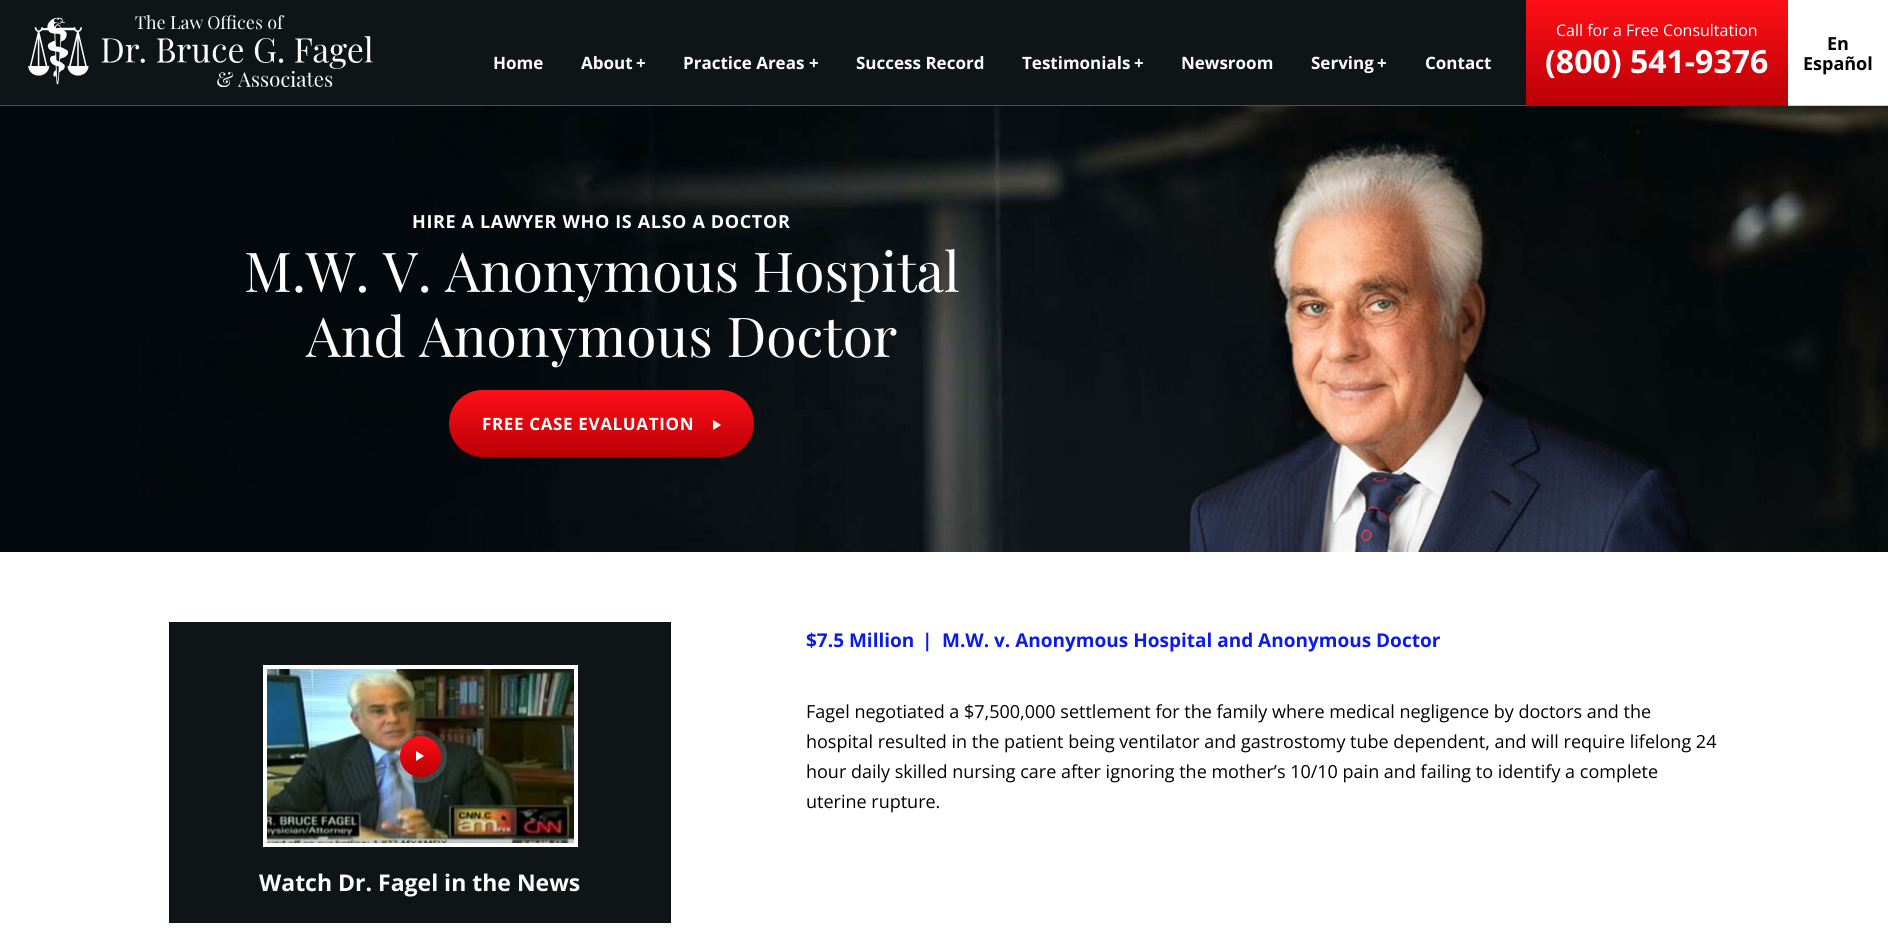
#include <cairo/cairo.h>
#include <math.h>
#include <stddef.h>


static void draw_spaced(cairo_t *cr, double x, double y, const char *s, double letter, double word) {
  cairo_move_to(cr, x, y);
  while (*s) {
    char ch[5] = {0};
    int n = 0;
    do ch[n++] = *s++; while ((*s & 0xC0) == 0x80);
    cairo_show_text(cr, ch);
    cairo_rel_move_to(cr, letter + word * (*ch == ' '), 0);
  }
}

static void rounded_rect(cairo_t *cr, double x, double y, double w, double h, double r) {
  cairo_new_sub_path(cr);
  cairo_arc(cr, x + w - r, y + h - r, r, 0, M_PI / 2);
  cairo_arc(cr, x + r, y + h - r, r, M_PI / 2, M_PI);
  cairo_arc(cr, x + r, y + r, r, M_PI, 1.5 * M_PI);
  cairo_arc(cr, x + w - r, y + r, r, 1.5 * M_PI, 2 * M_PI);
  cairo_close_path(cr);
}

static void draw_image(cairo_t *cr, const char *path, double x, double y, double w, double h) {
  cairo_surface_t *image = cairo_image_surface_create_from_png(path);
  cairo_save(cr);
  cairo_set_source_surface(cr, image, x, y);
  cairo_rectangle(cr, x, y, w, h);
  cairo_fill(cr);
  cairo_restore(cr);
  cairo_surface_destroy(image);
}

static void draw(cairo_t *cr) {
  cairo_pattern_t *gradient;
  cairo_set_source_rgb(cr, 1, 1, 1);
  cairo_paint(cr);
  cairo_set_source_rgb(cr, 15 / 255.0, 21 / 255.0, 23 / 255.0);
  cairo_rectangle(cr, 0, 0, 1526, 105);
  cairo_fill(cr);
  cairo_set_source_rgb(cr, 78 / 255.0, 81 / 255.0, 83 / 255.0);
  cairo_rectangle(cr, 0, 105, 1526, 1);
  cairo_fill(cr);
  draw_image(cr, "images/1.png", 28, 15, 345, 72);
  gradient = cairo_pattern_create_linear(1657, 0, 1657, 106);
  cairo_pattern_add_color_stop_rgba(gradient, 0, 1, 15 / 255.0, 23 / 255.0, 1);
  cairo_pattern_add_color_stop_rgba(gradient, 1, 186 / 255.0, 0, 6 / 255.0, 1);
  cairo_set_source(cr, gradient);
  cairo_pattern_destroy(gradient);
  cairo_rectangle(cr, 1526, 0, 262, 106);
  cairo_fill(cr);
  cairo_set_source_rgb(cr, 206 / 255.0, 206 / 255.0, 206 / 255.0);
  cairo_rectangle(cr, 1788, 105, 100, 1);
  cairo_fill(cr);
  draw_image(cr, "images/2.png", 0, 106, 1888, 446);
  gradient = cairo_pattern_create_linear(602, 390, 602, 457);
  cairo_pattern_add_color_stop_rgba(gradient, 0, 1, 15 / 255.0, 23 / 255.0, 1);
  cairo_pattern_add_color_stop_rgba(gradient, 1, 186 / 255.0, 0, 6 / 255.0, 1);
  cairo_set_source(cr, gradient);
  cairo_pattern_destroy(gradient);
  rounded_rect(cr, 449, 390, 305, 67, 33.5);
  cairo_fill(cr);
  cairo_set_source_rgb(cr, 1, 1, 1);
  cairo_new_path(cr);
  cairo_move_to(cr, 713, 430);
  cairo_line_to(cr, 713, 420);
  cairo_line_to(cr, 721, 425);
  cairo_close_path(cr);
  cairo_fill(cr);
  cairo_set_source_rgb(cr, 15 / 255.0, 21 / 255.0, 23 / 255.0);
  cairo_rectangle(cr, 169, 622, 502, 301);
  cairo_fill(cr);
  cairo_rectangle(cr, 265, 667, 311, 178);
  cairo_set_source_rgb(cr, 1, 1, 1);
  cairo_set_line_width(cr, 4);
  cairo_stroke(cr);
  draw_image(cr, "images/3.png", 267, 669, 307, 174);
  cairo_set_source_rgba(cr, 1, 1, 1, 0.15);
  cairo_arc(cr, 420.5, 756.5, 26.5, 0, 2 * M_PI);
  cairo_fill(cr);
  gradient = cairo_pattern_create_linear(421, 736, 421, 777);
  cairo_pattern_add_color_stop_rgba(gradient, 0, 1, 15 / 255.0, 23 / 255.0, 1);
  cairo_pattern_add_color_stop_rgba(gradient, 1, 186 / 255.0, 0, 6 / 255.0, 1);
  cairo_set_source(cr, gradient);
  cairo_pattern_destroy(gradient);
  cairo_arc(cr, 420.5, 756.5, 20.5, 0, 2 * M_PI);
  cairo_fill(cr);
  cairo_set_source_rgb(cr, 1, 1, 1);
  cairo_new_path(cr);
  cairo_move_to(cr, 416, 761);
  cairo_line_to(cr, 416, 751);
  cairo_line_to(cr, 424, 756);
  cairo_close_path(cr);
  cairo_fill(cr);
  cairo_select_font_face(cr, "Open Sans", CAIRO_FONT_SLANT_NORMAL, CAIRO_FONT_WEIGHT_BOLD);
  cairo_set_font_size(cr, 17);
  cairo_move_to(cr, 493, 69);
  cairo_show_text(cr, "Home");
  cairo_move_to(cr, 581, 69);
  cairo_show_text(cr, "About");
  cairo_move_to(cr, 636, 69);
  cairo_show_text(cr, "+");
  cairo_move_to(cr, 683, 69);
  cairo_show_text(cr, "Practice Areas");
  cairo_move_to(cr, 809, 69);
  cairo_show_text(cr, "+");
  cairo_move_to(cr, 856, 69);
  cairo_show_text(cr, "Success Record");
  cairo_move_to(cr, 1022, 69);
  cairo_show_text(cr, "Testimonials");
  cairo_move_to(cr, 1134, 69);
  cairo_show_text(cr, "+");
  cairo_move_to(cr, 1181, 69);
  cairo_show_text(cr, "Newsroom");
  cairo_move_to(cr, 1311, 69);
  cairo_show_text(cr, "Serving");
  cairo_move_to(cr, 1377, 69);
  cairo_show_text(cr, "+");
  cairo_move_to(cr, 1425, 69);
  cairo_show_text(cr, "Contact");
  cairo_select_font_face(cr, "Open Sans", CAIRO_FONT_SLANT_NORMAL, CAIRO_FONT_WEIGHT_NORMAL);
  cairo_set_font_size(cr, 16);
  cairo_move_to(cr, 1556, 36);
  cairo_show_text(cr, "Call for a Free Consultation");
  cairo_select_font_face(cr, "Open Sans", CAIRO_FONT_SLANT_NORMAL, CAIRO_FONT_WEIGHT_BOLD);
  cairo_set_font_size(cr, 32);
  cairo_move_to(cr, 1545, 73);
  cairo_show_text(cr, "(800) 541-9376");
  cairo_set_font_size(cr, 18);
  cairo_set_source_rgb(cr, 0, 0, 0);
  cairo_move_to(cr, 1827, 50);
  cairo_show_text(cr, "En");
  cairo_move_to(cr, 1803, 70);
  cairo_show_text(cr, "Español");
  cairo_set_source_rgb(cr, 1, 1, 1);
  draw_spaced(cr, 412, 228, "HIRE A LAWYER WHO IS ALSO A DOCTOR", 0.65, 0);
  cairo_select_font_face(cr, "Playfair Display", CAIRO_FONT_SLANT_NORMAL, CAIRO_FONT_WEIGHT_NORMAL);
  cairo_set_font_size(cr, 55);
  cairo_move_to(cr, 244, 292);
  cairo_show_text(cr, "M.W. V. Anonymous Hospital");
  cairo_move_to(cr, 306, 357);
  cairo_show_text(cr, "And Anonymous Doctor");
  cairo_select_font_face(cr, "Open Sans", CAIRO_FONT_SLANT_NORMAL, CAIRO_FONT_WEIGHT_BOLD);
  cairo_set_font_size(cr, 17);
  draw_spaced(cr, 482, 430, "FREE CASE EVALUATION", 0.65, 0);
  cairo_set_font_size(cr, 19);
  cairo_set_source_rgb(cr, 12 / 255.0, 28 / 255.0, 232 / 255.0);
  cairo_move_to(cr, 806, 647);
  cairo_show_text(cr, "$7.5 Million");
  cairo_move_to(cr, 922, 647);
  cairo_show_text(cr, "|");
  cairo_move_to(cr, 942, 647);
  cairo_show_text(cr, "M.W. v. Anonymous Hospital and Anonymous Doctor");
  cairo_select_font_face(cr, "Open Sans", CAIRO_FONT_SLANT_NORMAL, CAIRO_FONT_WEIGHT_NORMAL);
  cairo_set_font_size(cr, 18);
  cairo_set_source_rgb(cr, 0, 0, 0);
  cairo_move_to(cr, 806, 718);
  cairo_show_text(cr, "Fagel negotiated a $7,500,000 settlement for the family where medical negligence by doctors and the");
  cairo_move_to(cr, 806, 748);
  cairo_show_text(cr, "hospital resulted in the patient being ventilator and gastrostomy tube dependent, and will require lifelong 24");
  cairo_move_to(cr, 806, 778);
  cairo_show_text(cr, "hour daily skilled nursing care after ignoring the mother’s 10/10 pain and failing to identify a complete");
  cairo_move_to(cr, 806, 808);
  cairo_show_text(cr, "uterine rupture.");
  cairo_select_font_face(cr, "Open Sans", CAIRO_FONT_SLANT_NORMAL, CAIRO_FONT_WEIGHT_BOLD);
  cairo_set_font_size(cr, 23);
  cairo_set_source_rgb(cr, 1, 1, 1);
  cairo_move_to(cr, 259, 891);
  cairo_show_text(cr, "Watch Dr. Fagel in the News");
}

int main(void) {
  cairo_surface_t *surface = cairo_image_surface_create(CAIRO_FORMAT_RGB24, 1888, 932);
  cairo_t *cr = cairo_create(surface);
  cairo_font_options_t *options = cairo_font_options_create();
  cairo_font_options_set_hint_metrics(options, CAIRO_HINT_METRICS_OFF);
  cairo_font_options_set_hint_style(options, CAIRO_HINT_STYLE_NONE);
  cairo_set_font_options(cr, options);
  cairo_set_miter_limit(cr, 4);
  draw(cr);
  cairo_surface_write_to_png(surface, "out.png");
  cairo_font_options_destroy(options);
  cairo_destroy(cr);
  cairo_surface_destroy(surface);
  return 0;
}
